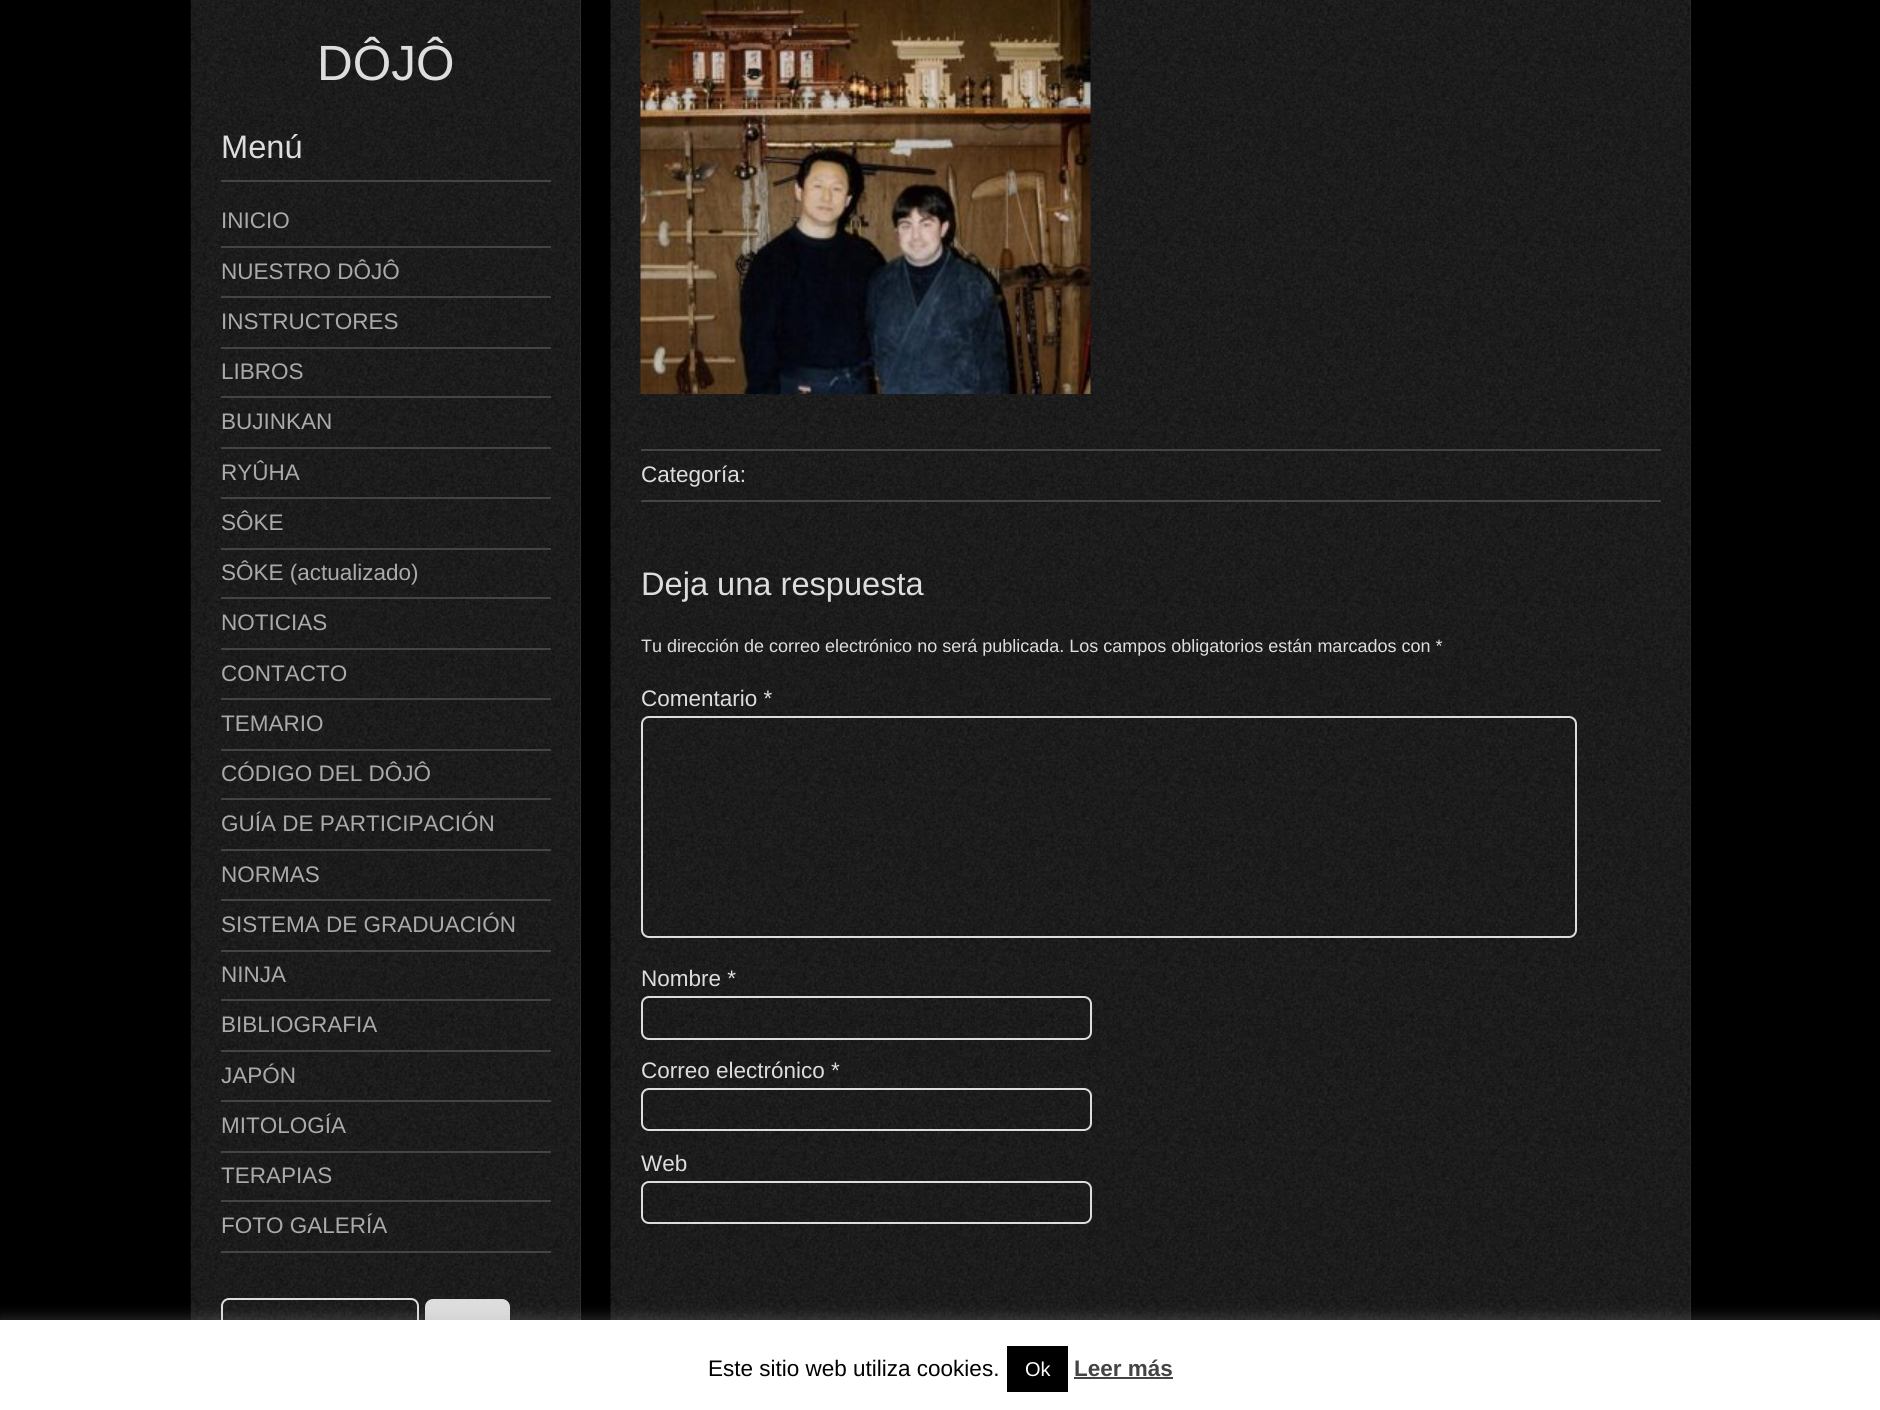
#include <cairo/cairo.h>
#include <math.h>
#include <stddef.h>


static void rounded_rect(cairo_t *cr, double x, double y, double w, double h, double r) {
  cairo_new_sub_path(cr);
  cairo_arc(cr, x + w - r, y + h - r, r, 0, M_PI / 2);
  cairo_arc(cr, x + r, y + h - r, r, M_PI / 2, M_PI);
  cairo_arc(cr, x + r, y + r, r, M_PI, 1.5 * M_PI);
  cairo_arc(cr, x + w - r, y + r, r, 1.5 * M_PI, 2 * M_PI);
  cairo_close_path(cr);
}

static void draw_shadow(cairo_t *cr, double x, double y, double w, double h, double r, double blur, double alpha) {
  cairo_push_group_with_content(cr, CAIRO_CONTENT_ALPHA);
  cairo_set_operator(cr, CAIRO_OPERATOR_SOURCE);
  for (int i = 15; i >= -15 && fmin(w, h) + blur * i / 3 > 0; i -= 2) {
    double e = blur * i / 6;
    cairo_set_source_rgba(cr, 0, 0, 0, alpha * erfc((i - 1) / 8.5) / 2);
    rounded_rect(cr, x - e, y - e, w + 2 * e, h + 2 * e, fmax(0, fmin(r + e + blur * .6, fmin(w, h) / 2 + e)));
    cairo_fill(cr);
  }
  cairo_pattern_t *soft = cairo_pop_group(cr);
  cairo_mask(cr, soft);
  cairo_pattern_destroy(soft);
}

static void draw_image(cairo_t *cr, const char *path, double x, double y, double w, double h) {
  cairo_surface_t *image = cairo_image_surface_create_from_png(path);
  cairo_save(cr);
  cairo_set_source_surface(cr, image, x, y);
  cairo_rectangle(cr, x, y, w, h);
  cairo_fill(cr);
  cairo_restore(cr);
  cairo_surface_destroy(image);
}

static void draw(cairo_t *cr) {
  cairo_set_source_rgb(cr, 0, 0, 0);
  cairo_paint(cr);
  cairo_set_source_rgb(cr, 51 / 255.0, 51 / 255.0, 51 / 255.0);
  cairo_rectangle(cr, 580, 0, 1, 1320);
  cairo_fill(cr);
  draw_image(cr, "images/1.png", 190, 0, 391, 1320);
  cairo_set_source_rgb(cr, 68 / 255.0, 68 / 255.0, 68 / 255.0);
  cairo_rectangle(cr, 221, 180, 330, 2);
  cairo_fill(cr);
  cairo_rectangle(cr, 221, 246, 330, 2);
  cairo_fill(cr);
  cairo_rectangle(cr, 221, 296, 330, 2);
  cairo_fill(cr);
  cairo_rectangle(cr, 221, 347, 330, 2);
  cairo_fill(cr);
  cairo_rectangle(cr, 221, 396, 330, 2);
  cairo_fill(cr);
  cairo_rectangle(cr, 221, 447, 330, 2);
  cairo_fill(cr);
  cairo_rectangle(cr, 221, 497, 330, 2);
  cairo_fill(cr);
  cairo_rectangle(cr, 221, 548, 330, 2);
  cairo_fill(cr);
  cairo_rectangle(cr, 221, 597, 330, 2);
  cairo_fill(cr);
  cairo_rectangle(cr, 221, 648, 330, 2);
  cairo_fill(cr);
  cairo_rectangle(cr, 221, 698, 330, 2);
  cairo_fill(cr);
  cairo_rectangle(cr, 221, 749, 330, 2);
  cairo_fill(cr);
  cairo_rectangle(cr, 221, 798, 330, 2);
  cairo_fill(cr);
  cairo_rectangle(cr, 221, 849, 330, 2);
  cairo_fill(cr);
  cairo_rectangle(cr, 221, 899, 330, 2);
  cairo_fill(cr);
  cairo_rectangle(cr, 221, 950, 330, 2);
  cairo_fill(cr);
  cairo_rectangle(cr, 221, 999, 330, 2);
  cairo_fill(cr);
  cairo_rectangle(cr, 221, 1050, 330, 2);
  cairo_fill(cr);
  cairo_rectangle(cr, 221, 1100, 330, 2);
  cairo_fill(cr);
  cairo_rectangle(cr, 221, 1151, 330, 2);
  cairo_fill(cr);
  cairo_rectangle(cr, 221, 1200, 330, 2);
  cairo_fill(cr);
  cairo_rectangle(cr, 221, 1251, 330, 2);
  cairo_fill(cr);
  rounded_rect(cr, 222, 1299, 196, 41, 7);
  cairo_set_source_rgb(cr, 221 / 255.0, 221 / 255.0, 221 / 255.0);
  cairo_stroke(cr);
  rounded_rect(cr, 425, 1299, 85, 41, 8);
  cairo_fill(cr);
  cairo_set_source_rgb(cr, 51 / 255.0, 51 / 255.0, 51 / 255.0);
  cairo_rectangle(cr, 1690, 0, 1, 1320);
  cairo_fill(cr);
  draw_image(cr, "images/2.png", 610, 0, 1081, 1320);
  draw_image(cr, "images/3.png", 640, 0, 451, 394);
  cairo_set_source_rgb(cr, 68 / 255.0, 68 / 255.0, 68 / 255.0);
  cairo_rectangle(cr, 641, 449, 1020, 2);
  cairo_fill(cr);
  cairo_rectangle(cr, 641, 500, 1020, 2);
  cairo_fill(cr);
  rounded_rect(cr, 642, 717, 934, 220, 7);
  cairo_set_source_rgb(cr, 221 / 255.0, 221 / 255.0, 221 / 255.0);
  cairo_stroke(cr);
  rounded_rect(cr, 642, 997, 449, 42, 7);
  cairo_stroke(cr);
  rounded_rect(cr, 642, 1089, 449, 41, 7);
  cairo_stroke(cr);
  rounded_rect(cr, 642, 1182, 449, 41, 7);
  cairo_stroke(cr);
  cairo_set_source_rgb(cr, 172 / 255.0, 171 / 255.0, 171 / 255.0);
  draw_shadow(cr, 0, 1319, 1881, 90, 0, 7.5, 0.3);
  cairo_set_source_rgb(cr, 1, 1, 1);
  cairo_rectangle(cr, 0, 1320, 1880, 90);
  cairo_fill(cr);
  cairo_set_source_rgb(cr, 0, 0, 0);
  cairo_rectangle(cr, 1007, 1346, 61, 46);
  cairo_fill(cr);
  cairo_set_source_rgb(cr, 68 / 255.0, 68 / 255.0, 68 / 255.0);
  cairo_rectangle(cr, 1074, 1377, 99, 2);
  cairo_fill(cr);
  cairo_select_font_face(cr, "Liberation Sans", CAIRO_FONT_SLANT_NORMAL, CAIRO_FONT_WEIGHT_NORMAL);
  cairo_set_font_size(cr, 49.5);
  cairo_set_source_rgb(cr, 221 / 255.0, 221 / 255.0, 221 / 255.0);
  cairo_move_to(cr, 317, 80);
  cairo_show_text(cr, "DÔJÔ");
  cairo_set_font_size(cr, 32.6);
  cairo_move_to(cr, 221, 158);
  cairo_show_text(cr, "Menú");
  cairo_set_font_size(cr, 22.5);
  cairo_set_source_rgb(cr, 170 / 255.0, 170 / 255.0, 170 / 255.0);
  cairo_move_to(cr, 221, 228);
  cairo_show_text(cr, "INICIO");
  cairo_move_to(cr, 221, 279);
  cairo_show_text(cr, "NUESTRO DÔJÔ");
  cairo_move_to(cr, 221, 329);
  cairo_show_text(cr, "INSTRUCTORES");
  cairo_move_to(cr, 221, 379);
  cairo_show_text(cr, "LIBROS");
  cairo_move_to(cr, 221, 429);
  cairo_show_text(cr, "BUJINKAN");
  cairo_move_to(cr, 221, 480);
  cairo_show_text(cr, "RYÛHA");
  cairo_move_to(cr, 221, 530);
  cairo_show_text(cr, "SÔKE");
  cairo_move_to(cr, 221, 580);
  cairo_show_text(cr, "SÔKE (actualizado)");
  cairo_move_to(cr, 221, 630);
  cairo_show_text(cr, "NOTICIAS");
  cairo_move_to(cr, 221, 681);
  cairo_show_text(cr, "CONTACTO");
  cairo_move_to(cr, 221, 731);
  cairo_show_text(cr, "TEMARIO");
  cairo_move_to(cr, 221, 781);
  cairo_show_text(cr, "CÓDIGO DEL DÔJÔ");
  cairo_move_to(cr, 221, 831);
  cairo_show_text(cr, "GUÍA DE PARTICIPACIÓN");
  cairo_move_to(cr, 221, 882);
  cairo_show_text(cr, "NORMAS");
  cairo_move_to(cr, 221, 932);
  cairo_show_text(cr, "SISTEMA DE GRADUACIÓN");
  cairo_move_to(cr, 221, 982);
  cairo_show_text(cr, "NINJA");
  cairo_move_to(cr, 221, 1032);
  cairo_show_text(cr, "BIBLIOGRAFIA");
  cairo_move_to(cr, 221, 1083);
  cairo_show_text(cr, "JAPÓN");
  cairo_move_to(cr, 221, 1133);
  cairo_show_text(cr, "MITOLOGÍA");
  cairo_move_to(cr, 221, 1183);
  cairo_show_text(cr, "TERAPIAS");
  cairo_move_to(cr, 221, 1233);
  cairo_show_text(cr, "FOTO GALERÍA");
  cairo_set_source_rgb(cr, 221 / 255.0, 221 / 255.0, 221 / 255.0);
  cairo_move_to(cr, 641, 482);
  cairo_show_text(cr, "Categoría:");
  cairo_set_font_size(cr, 32.6);
  cairo_move_to(cr, 641, 595);
  cairo_show_text(cr, "Deja una respuesta");
  cairo_set_font_size(cr, 18);
  cairo_move_to(cr, 641, 652);
  cairo_show_text(cr, "Tu dirección de correo electrónico no será publicada. Los campos obligatorios están marcados con *");
  cairo_set_font_size(cr, 22.5);
  cairo_move_to(cr, 641, 706);
  cairo_show_text(cr, "Comentario *");
  cairo_move_to(cr, 641, 986);
  cairo_show_text(cr, "Nombre *");
  cairo_move_to(cr, 641, 1078);
  cairo_show_text(cr, "Correo electrónico *");
  cairo_move_to(cr, 641, 1171);
  cairo_show_text(cr, "Web");
  cairo_set_source_rgb(cr, 0, 0, 0);
  cairo_move_to(cr, 708, 1376);
  cairo_show_text(cr, "Este sitio web utiliza cookies.");
  cairo_set_font_size(cr, 20);
  cairo_set_source_rgb(cr, 1, 1, 1);
  cairo_move_to(cr, 1025, 1376);
  cairo_show_text(cr, "Ok");
  cairo_select_font_face(cr, "Liberation Sans", CAIRO_FONT_SLANT_NORMAL, CAIRO_FONT_WEIGHT_BOLD);
  cairo_set_font_size(cr, 22.5);
  cairo_set_source_rgb(cr, 68 / 255.0, 68 / 255.0, 68 / 255.0);
  cairo_move_to(cr, 1074, 1376);
  cairo_show_text(cr, "Leer más");
}

int main(void) {
  cairo_surface_t *surface = cairo_image_surface_create(CAIRO_FORMAT_RGB24, 1880, 1410);
  cairo_t *cr = cairo_create(surface);
  cairo_font_options_t *options = cairo_font_options_create();
  cairo_font_options_set_hint_metrics(options, CAIRO_HINT_METRICS_OFF);
  cairo_font_options_set_hint_style(options, CAIRO_HINT_STYLE_NONE);
  cairo_set_font_options(cr, options);
  cairo_set_miter_limit(cr, 4);
  draw(cr);
  cairo_surface_write_to_png(surface, "out.png");
  cairo_font_options_destroy(options);
  cairo_destroy(cr);
  cairo_surface_destroy(surface);
  return 0;
}
